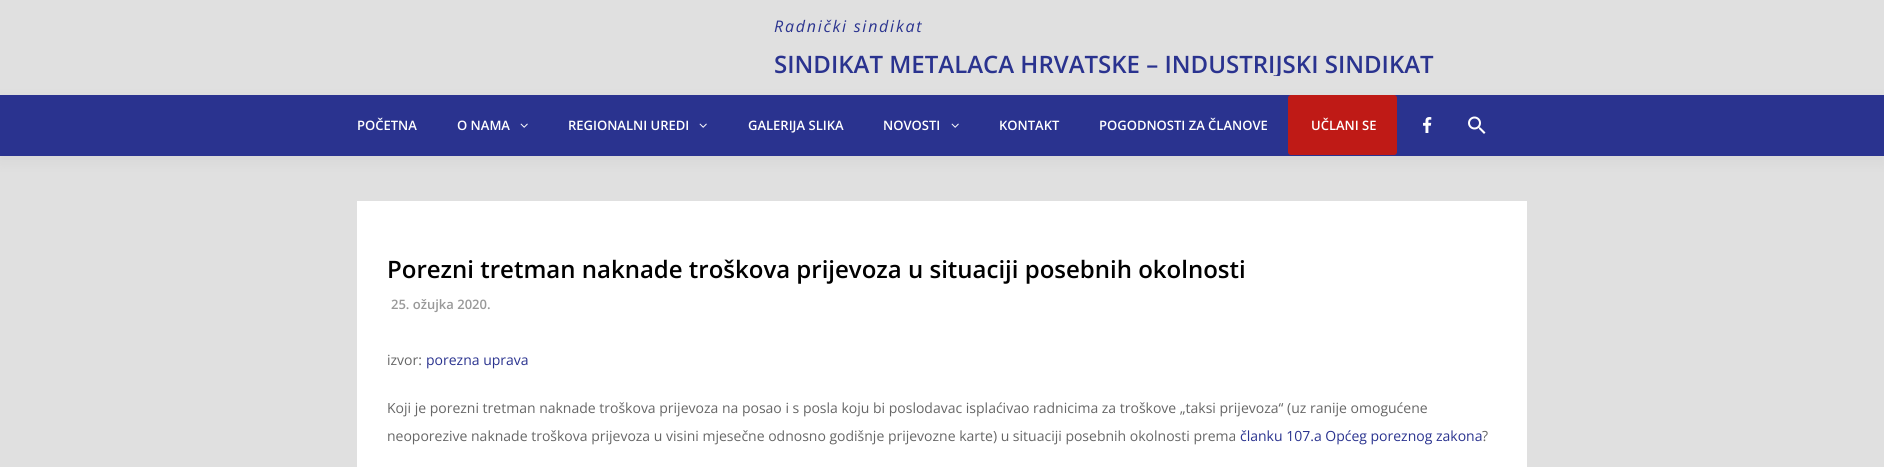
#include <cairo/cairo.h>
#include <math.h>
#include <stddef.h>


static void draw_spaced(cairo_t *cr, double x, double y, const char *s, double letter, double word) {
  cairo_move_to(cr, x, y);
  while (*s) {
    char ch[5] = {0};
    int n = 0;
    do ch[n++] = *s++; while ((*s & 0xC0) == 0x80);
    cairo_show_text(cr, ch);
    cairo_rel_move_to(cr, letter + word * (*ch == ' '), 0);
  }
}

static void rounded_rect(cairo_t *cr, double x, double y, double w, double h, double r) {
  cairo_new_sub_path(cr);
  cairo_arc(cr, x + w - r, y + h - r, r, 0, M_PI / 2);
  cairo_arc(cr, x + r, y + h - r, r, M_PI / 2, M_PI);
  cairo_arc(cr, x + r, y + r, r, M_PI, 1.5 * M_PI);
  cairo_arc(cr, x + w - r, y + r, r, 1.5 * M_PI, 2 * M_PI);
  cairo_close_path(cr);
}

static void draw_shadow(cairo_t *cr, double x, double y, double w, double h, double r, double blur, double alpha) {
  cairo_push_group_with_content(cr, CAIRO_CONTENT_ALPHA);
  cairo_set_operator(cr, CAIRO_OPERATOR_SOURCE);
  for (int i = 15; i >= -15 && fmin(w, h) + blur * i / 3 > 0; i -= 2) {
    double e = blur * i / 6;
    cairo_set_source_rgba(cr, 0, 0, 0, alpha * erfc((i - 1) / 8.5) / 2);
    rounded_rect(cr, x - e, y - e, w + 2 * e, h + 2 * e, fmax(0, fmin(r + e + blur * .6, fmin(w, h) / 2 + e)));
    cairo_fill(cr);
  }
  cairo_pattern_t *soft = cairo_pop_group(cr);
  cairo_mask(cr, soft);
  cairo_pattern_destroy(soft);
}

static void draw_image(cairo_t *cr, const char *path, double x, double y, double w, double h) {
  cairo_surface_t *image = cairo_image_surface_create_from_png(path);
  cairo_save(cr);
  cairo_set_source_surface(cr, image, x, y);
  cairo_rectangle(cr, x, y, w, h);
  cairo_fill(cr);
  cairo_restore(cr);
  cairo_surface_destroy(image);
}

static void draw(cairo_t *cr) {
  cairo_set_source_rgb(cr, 224 / 255.0, 224 / 255.0, 224 / 255.0);
  cairo_paint(cr);
  cairo_set_source_rgb(cr, 0, 0, 0);
  draw_shadow(cr, 0, 100, 1884, 61, 0, 7.5, 0.05);
  cairo_set_source_rgb(cr, 42 / 255.0, 51 / 255.0, 143 / 255.0);
  cairo_rectangle(cr, 0, 95, 1884, 61);
  cairo_fill(cr);
  draw_image(cr, "images/1.png", 520, 123, 8, 5);
  draw_image(cr, "images/1.png", 699, 123, 8, 5);
  draw_image(cr, "images/1.png", 951, 123, 8, 5);
  cairo_set_source_rgb(cr, 191 / 255.0, 26 / 255.0, 22 / 255.0);
  rounded_rect(cr, 1288, 95, 109, 60, 3);
  cairo_fill(cr);
  draw_image(cr, "images/2.png", 1423, 117, 9, 16);
  draw_image(cr, "images/3.png", 1468, 116, 18, 18);
  cairo_set_source_rgb(cr, 1, 1, 1);
  cairo_rectangle(cr, 357, 201, 1170, 266);
  cairo_fill(cr);
  cairo_select_font_face(cr, "Open Sans", CAIRO_FONT_SLANT_ITALIC, CAIRO_FONT_WEIGHT_NORMAL);
  cairo_set_font_size(cr, 16);
  cairo_set_source_rgb(cr, 42 / 255.0, 51 / 255.0, 143 / 255.0);
  draw_spaced(cr, 774, 32, "Radnički sindikat", 1.75, 0);
  cairo_save(cr);
  cairo_rectangle(cr, 774, 10, 660, 66);
  cairo_clip(cr);
  cairo_select_font_face(cr, "Open Sans SemiBold", CAIRO_FONT_SLANT_NORMAL, CAIRO_FONT_WEIGHT_NORMAL);
  cairo_set_font_size(cr, 24);
  cairo_move_to(cr, 774, 73);
  cairo_show_text(cr, "SINDIKAT METALACA HRVATSKE – INDUSTRIJSKI SINDIKAT");
  cairo_restore(cr);
  cairo_select_font_face(cr, "Open Sans SemiBold", CAIRO_FONT_SLANT_NORMAL, CAIRO_FONT_WEIGHT_NORMAL);
  cairo_set_font_size(cr, 13);
  cairo_set_source_rgb(cr, 1, 1, 1);
  cairo_move_to(cr, 357, 130);
  cairo_show_text(cr, "POČETNA");
  cairo_move_to(cr, 457, 130);
  cairo_show_text(cr, "O NAMA");
  cairo_move_to(cr, 568, 130);
  cairo_show_text(cr, "REGIONALNI UREDI");
  cairo_move_to(cr, 748, 130);
  cairo_show_text(cr, "GALERIJA SLIKA");
  cairo_move_to(cr, 883, 130);
  cairo_show_text(cr, "NOVOSTI");
  cairo_move_to(cr, 999, 130);
  cairo_show_text(cr, "KONTAKT");
  cairo_move_to(cr, 1099, 130);
  cairo_show_text(cr, "POGODNOSTI ZA ČLANOVE");
  cairo_move_to(cr, 1311, 130);
  cairo_show_text(cr, "UČLANI SE");
  cairo_set_font_size(cr, 24);
  cairo_set_source_rgb(cr, 0, 0, 0);
  cairo_move_to(cr, 387, 278);
  cairo_show_text(cr, "Porezni tretman naknade troškova prijevoza u situaciji posebnih okolnosti");
  cairo_set_font_size(cr, 13);
  cairo_set_source_rgb(cr, 153 / 255.0, 153 / 255.0, 153 / 255.0);
  cairo_move_to(cr, 391, 309);
  cairo_show_text(cr, "25. ožujka 2020.");
  cairo_select_font_face(cr, "Open Sans", CAIRO_FONT_SLANT_NORMAL, CAIRO_FONT_WEIGHT_NORMAL);
  cairo_set_font_size(cr, 14);
  cairo_set_source_rgb(cr, 102 / 255.0, 102 / 255.0, 102 / 255.0);
  cairo_move_to(cr, 387, 365);
  cairo_show_text(cr, "izvor:");
  cairo_set_source_rgb(cr, 42 / 255.0, 51 / 255.0, 143 / 255.0);
  cairo_move_to(cr, 426, 365);
  cairo_show_text(cr, "porezna uprava");
  cairo_set_source_rgb(cr, 102 / 255.0, 102 / 255.0, 102 / 255.0);
  cairo_move_to(cr, 387, 413);
  cairo_show_text(cr, "Koji je porezni tretman naknade troškova prijevoza na posao i s posla koju bi poslodavac isplaćivao radnicima za troškove „taksi prijevoza“ (uz ranije omogućene");
  cairo_move_to(cr, 387, 441);
  cairo_show_text(cr, "neoporezive naknade troškova prijevoza u visini mjesečne odnosno godišnje prijevozne karte) u situaciji posebnih okolnosti prema");
  cairo_set_source_rgb(cr, 42 / 255.0, 51 / 255.0, 143 / 255.0);
  cairo_move_to(cr, 1240, 441);
  cairo_show_text(cr, "članku 107.a Općeg poreznog zakona");
  cairo_set_source_rgb(cr, 102 / 255.0, 102 / 255.0, 102 / 255.0);
  cairo_move_to(cr, 1482, 441);
  cairo_show_text(cr, "?");
}

int main(void) {
  cairo_surface_t *surface = cairo_image_surface_create(CAIRO_FORMAT_RGB24, 1884, 467);
  cairo_t *cr = cairo_create(surface);
  cairo_font_options_t *options = cairo_font_options_create();
  cairo_font_options_set_hint_metrics(options, CAIRO_HINT_METRICS_OFF);
  cairo_font_options_set_hint_style(options, CAIRO_HINT_STYLE_NONE);
  cairo_set_font_options(cr, options);
  cairo_set_miter_limit(cr, 4);
  draw(cr);
  cairo_surface_write_to_png(surface, "out.png");
  cairo_font_options_destroy(options);
  cairo_destroy(cr);
  cairo_surface_destroy(surface);
  return 0;
}
